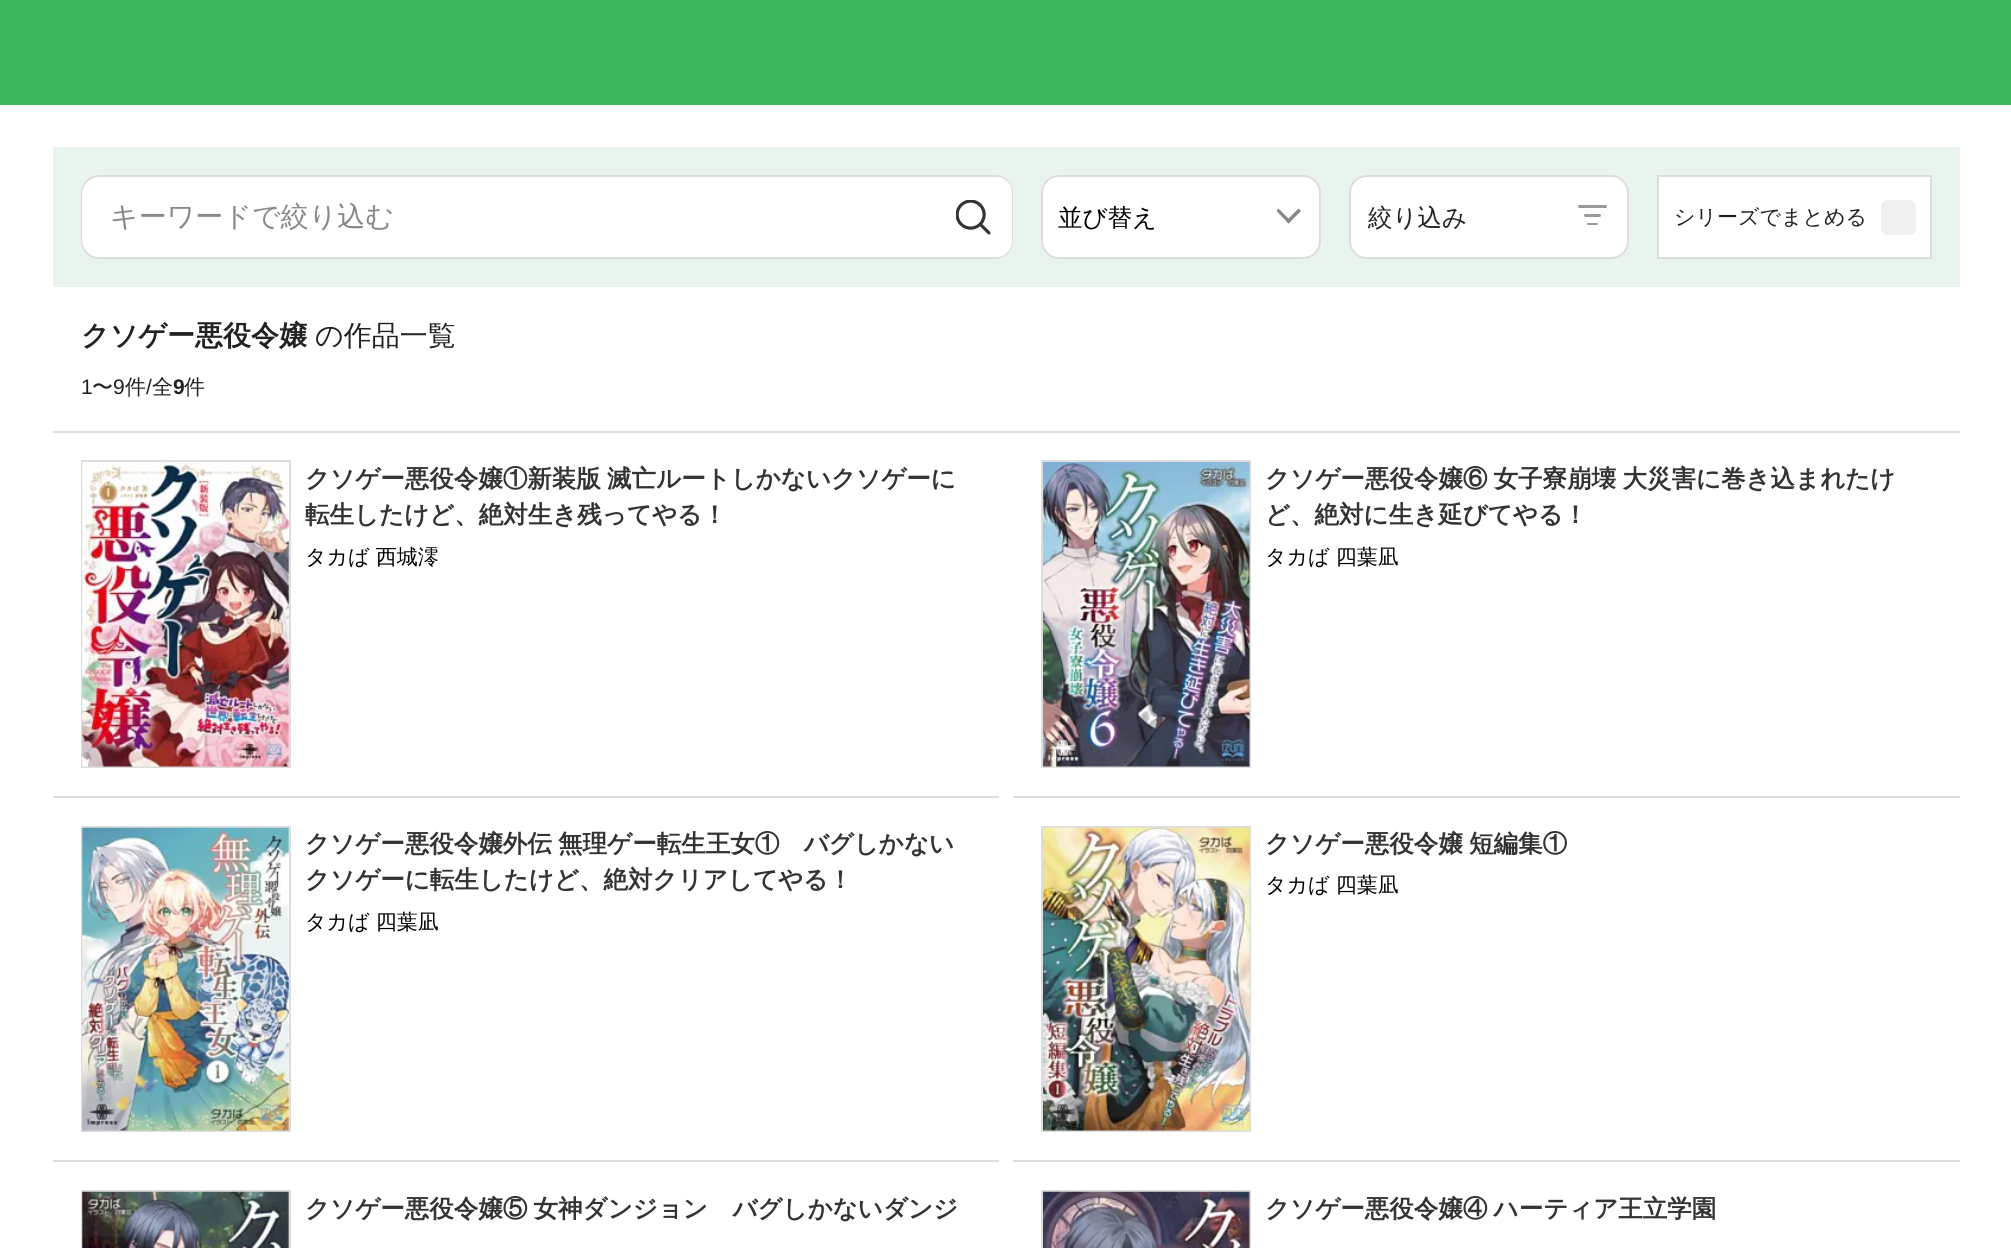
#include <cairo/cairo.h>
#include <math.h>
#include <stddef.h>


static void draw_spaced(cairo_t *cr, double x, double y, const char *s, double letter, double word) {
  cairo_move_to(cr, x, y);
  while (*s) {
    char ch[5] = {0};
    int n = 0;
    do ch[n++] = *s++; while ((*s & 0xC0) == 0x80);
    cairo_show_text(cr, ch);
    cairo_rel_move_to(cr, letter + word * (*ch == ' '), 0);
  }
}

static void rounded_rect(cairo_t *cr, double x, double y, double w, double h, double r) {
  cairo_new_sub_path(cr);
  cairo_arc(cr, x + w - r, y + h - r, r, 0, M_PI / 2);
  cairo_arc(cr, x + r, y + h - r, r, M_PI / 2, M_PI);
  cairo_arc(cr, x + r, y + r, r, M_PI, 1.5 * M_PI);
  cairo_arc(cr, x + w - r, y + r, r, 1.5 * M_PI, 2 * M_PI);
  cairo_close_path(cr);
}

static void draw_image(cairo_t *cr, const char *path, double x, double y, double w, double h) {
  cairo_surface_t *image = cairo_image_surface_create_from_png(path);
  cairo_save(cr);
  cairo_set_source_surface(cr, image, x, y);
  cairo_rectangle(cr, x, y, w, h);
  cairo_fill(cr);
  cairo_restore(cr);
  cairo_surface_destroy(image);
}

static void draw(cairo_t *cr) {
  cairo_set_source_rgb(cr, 1, 1, 1);
  cairo_paint(cr);
  cairo_set_source_rgb(cr, 60 / 255.0, 182 / 255.0, 94 / 255.0);
  cairo_rectangle(cr, 0, 0, 2011, 105);
  cairo_fill(cr);
  cairo_set_source_rgb(cr, 232 / 255.0, 244 / 255.0, 236 / 255.0);
  cairo_rectangle(cr, 53, 147, 1907, 140);
  cairo_fill(cr);
  rounded_rect(cr, 82, 176, 930, 82, 17);
  cairo_set_source_rgb(cr, 221 / 255.0, 221 / 255.0, 221 / 255.0);
  cairo_stroke(cr);
  cairo_save(cr);
  rounded_rect(cr, 82, 177, 930, 80, 16);
  cairo_clip(cr);
  cairo_set_source_rgb(cr, 1, 1, 1);
  cairo_new_path(cr);
  cairo_move_to(cr, 100, 177);
  cairo_line_to(cr, 933, 177);
  cairo_line_to(cr, 933, 257);
  cairo_line_to(cr, 100, 257);
  cairo_curve_to(cr, 90, 257, 82, 249, 82, 239);
  cairo_line_to(cr, 82, 195);
  cairo_curve_to(cr, 82, 185, 90, 177, 100, 177);
  cairo_close_path(cr);
  cairo_fill(cr);
  cairo_restore(cr);
  cairo_set_source_rgb(cr, 1, 1, 1);
  cairo_new_path(cr);
  cairo_move_to(cr, 933, 177);
  cairo_line_to(cr, 996, 177);
  cairo_curve_to(cr, 1005, 177, 1012, 184, 1012, 193);
  cairo_line_to(cr, 1012, 241);
  cairo_curve_to(cr, 1012, 250, 1005, 257, 996, 257);
  cairo_line_to(cr, 933, 257);
  cairo_close_path(cr);
  cairo_fill(cr);
  draw_image(cr, "images/1.png", 956, 200, 35, 35);
  rounded_rect(cr, 1042, 176, 278, 82, 17);
  cairo_fill_preserve(cr);
  cairo_set_source_rgb(cr, 221 / 255.0, 221 / 255.0, 221 / 255.0);
  cairo_stroke(cr);
  cairo_set_source_rgb(cr, 136 / 255.0, 136 / 255.0, 136 / 255.0);
  cairo_new_path(cr);
  cairo_move_to(cr, 1301, 211);
  cairo_line_to(cr, 1288.5, 223.5);
  cairo_line_to(cr, 1286, 221);
  cairo_line_to(cr, 1298.5, 208.5);
  cairo_close_path(cr);
  cairo_fill(cr);
  cairo_new_path(cr);
  cairo_move_to(cr, 1291, 221);
  cairo_line_to(cr, 1288.5, 223.5);
  cairo_line_to(cr, 1276.5, 211);
  cairo_line_to(cr, 1278.5, 208.5);
  cairo_close_path(cr);
  cairo_fill(cr);
  cairo_set_source_rgb(cr, 1, 1, 1);
  rounded_rect(cr, 1350, 176, 278, 82, 17);
  cairo_fill_preserve(cr);
  cairo_set_source_rgb(cr, 221 / 255.0, 221 / 255.0, 221 / 255.0);
  cairo_stroke(cr);
  cairo_set_source_rgb(cr, 153 / 255.0, 153 / 255.0, 153 / 255.0);
  rounded_rect(cr, 1578, 205, 29, 3, 1.5);
  cairo_fill(cr);
  rounded_rect(cr, 1584, 214, 17, 3, 1.5);
  cairo_fill(cr);
  rounded_rect(cr, 1587, 223, 11, 2, 1);
  cairo_fill(cr);
  cairo_set_source_rgb(cr, 1, 1, 1);
  cairo_rectangle(cr, 1658, 176, 273, 82);
  cairo_fill_preserve(cr);
  cairo_set_source_rgb(cr, 221 / 255.0, 221 / 255.0, 221 / 255.0);
  cairo_stroke(cr);
  cairo_set_source_rgb(cr, 240 / 255.0, 240 / 255.0, 240 / 255.0);
  rounded_rect(cr, 1881, 200, 35, 35, 7);
  cairo_fill(cr);
  cairo_set_source_rgb(cr, 221 / 255.0, 221 / 255.0, 221 / 255.0);
  cairo_rectangle(cr, 53, 431, 1907, 2);
  cairo_fill(cr);
  cairo_rectangle(cr, 53, 796, 946, 2);
  cairo_fill(cr);
  cairo_rectangle(cr, 82, 461, 208, 306);
  cairo_stroke(cr);
  draw_image(cr, "images/2.png", 82, 462, 207, 305);
  cairo_rectangle(cr, 1013, 796, 947, 2);
  cairo_fill(cr);
  cairo_rectangle(cr, 1042, 461, 208, 306);
  cairo_stroke(cr);
  draw_image(cr, "images/3.png", 1043, 462, 207, 305);
  cairo_rectangle(cr, 53, 1160, 946, 2);
  cairo_fill(cr);
  cairo_rectangle(cr, 82, 827, 208, 304);
  cairo_stroke(cr);
  draw_image(cr, "images/4.png", 82, 827, 207, 304);
  cairo_rectangle(cr, 1013, 1160, 947, 2);
  cairo_fill(cr);
  cairo_rectangle(cr, 1042, 827, 208, 304);
  cairo_stroke(cr);
  draw_image(cr, "images/5.png", 1043, 827, 207, 304);
  cairo_rectangle(cr, 82, 1191, 208, 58);
  cairo_stroke(cr);
  draw_image(cr, "images/6.png", 82, 1191, 207, 57);
  cairo_rectangle(cr, 1042, 1191, 208, 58);
  cairo_stroke(cr);
  draw_image(cr, "images/7.png", 1043, 1191, 207, 57);
  cairo_select_font_face(cr, "WenQuanYi Zen Hei Medium", CAIRO_FONT_SLANT_NORMAL, CAIRO_FONT_WEIGHT_NORMAL);
  cairo_set_font_size(cr, 28);
  cairo_set_source_rgb(cr, 136 / 255.0, 136 / 255.0, 136 / 255.0);
  cairo_move_to(cr, 110, 226);
  cairo_show_text(cr, "キーワードで絞り込む");
  cairo_set_font_size(cr, 24.5);
  cairo_set_source_rgb(cr, 0, 0, 0);
  cairo_move_to(cr, 1058, 226);
  cairo_show_text(cr, "並び替え");
  cairo_set_source_rgb(cr, 34 / 255.0, 34 / 255.0, 34 / 255.0);
  cairo_move_to(cr, 1368, 226);
  cairo_show_text(cr, "絞り込み");
  cairo_set_font_size(cr, 21);
  cairo_move_to(cr, 1674, 224);
  cairo_show_text(cr, "シリーズでまとめる");
  cairo_select_font_face(cr, "WenQuanYi Zen Hei", CAIRO_FONT_SLANT_NORMAL, CAIRO_FONT_WEIGHT_BOLD);
  cairo_set_font_size(cr, 28);
  cairo_move_to(cr, 81, 345);
  cairo_show_text(cr, "クソゲー悪役令嬢");
  cairo_select_font_face(cr, "WenQuanYi Zen Hei Medium", CAIRO_FONT_SLANT_NORMAL, CAIRO_FONT_WEIGHT_NORMAL);
  cairo_move_to(cr, 315, 345);
  cairo_show_text(cr, "の作品一覧");
  cairo_select_font_face(cr, "Liberation Sans", CAIRO_FONT_SLANT_NORMAL, CAIRO_FONT_WEIGHT_NORMAL);
  cairo_set_font_size(cr, 21);
  cairo_move_to(cr, 81, 394);
  cairo_show_text(cr, "1");
  cairo_select_font_face(cr, "WenQuanYi Zen Hei Medium", CAIRO_FONT_SLANT_NORMAL, CAIRO_FONT_WEIGHT_NORMAL);
  cairo_move_to(cr, 92, 394);
  cairo_show_text(cr, "〜");
  cairo_select_font_face(cr, "Liberation Sans", CAIRO_FONT_SLANT_NORMAL, CAIRO_FONT_WEIGHT_NORMAL);
  cairo_move_to(cr, 113, 394);
  cairo_show_text(cr, "9");
  cairo_select_font_face(cr, "WenQuanYi Zen Hei Medium", CAIRO_FONT_SLANT_NORMAL, CAIRO_FONT_WEIGHT_NORMAL);
  cairo_move_to(cr, 125, 394);
  cairo_show_text(cr, "件");
  cairo_select_font_face(cr, "Liberation Sans", CAIRO_FONT_SLANT_NORMAL, CAIRO_FONT_WEIGHT_NORMAL);
  cairo_move_to(cr, 146, 394);
  cairo_show_text(cr, "/");
  cairo_select_font_face(cr, "WenQuanYi Zen Hei Medium", CAIRO_FONT_SLANT_NORMAL, CAIRO_FONT_WEIGHT_NORMAL);
  cairo_move_to(cr, 152, 394);
  cairo_show_text(cr, "全");
  cairo_select_font_face(cr, "Liberation Sans", CAIRO_FONT_SLANT_NORMAL, CAIRO_FONT_WEIGHT_BOLD);
  cairo_move_to(cr, 173, 394);
  cairo_show_text(cr, "9");
  cairo_select_font_face(cr, "WenQuanYi Zen Hei Medium", CAIRO_FONT_SLANT_NORMAL, CAIRO_FONT_WEIGHT_NORMAL);
  cairo_move_to(cr, 184, 394);
  cairo_show_text(cr, "件");
  cairo_select_font_face(cr, "WenQuanYi Zen Hei", CAIRO_FONT_SLANT_NORMAL, CAIRO_FONT_WEIGHT_BOLD);
  cairo_set_font_size(cr, 24.5);
  cairo_set_source_rgb(cr, 51 / 255.0, 51 / 255.0, 51 / 255.0);
  draw_spaced(cr, 305, 487, "クソゲー悪役令嬢①新装版 滅亡ルートしかないクソゲーに", 0, -1);
  cairo_move_to(cr, 305, 523);
  cairo_show_text(cr, "転生したけど、絶対生き残ってやる！");
  cairo_select_font_face(cr, "WenQuanYi Zen Hei Medium", CAIRO_FONT_SLANT_NORMAL, CAIRO_FONT_WEIGHT_NORMAL);
  cairo_set_font_size(cr, 21);
  cairo_set_source_rgb(cr, 0, 0, 0);
  cairo_move_to(cr, 305, 564);
  cairo_show_text(cr, "タカば 西城澪");
  cairo_select_font_face(cr, "WenQuanYi Zen Hei", CAIRO_FONT_SLANT_NORMAL, CAIRO_FONT_WEIGHT_BOLD);
  cairo_set_font_size(cr, 24.5);
  cairo_set_source_rgb(cr, 51 / 255.0, 51 / 255.0, 51 / 255.0);
  draw_spaced(cr, 1265, 487, "クソゲー悪役令嬢⑥ 女子寮崩壊 大災害に巻き込まれたけ", 0, -1);
  cairo_move_to(cr, 1265, 523);
  cairo_show_text(cr, "ど、絶対に生き延びてやる！");
  cairo_select_font_face(cr, "WenQuanYi Zen Hei Medium", CAIRO_FONT_SLANT_NORMAL, CAIRO_FONT_WEIGHT_NORMAL);
  cairo_set_font_size(cr, 21);
  cairo_set_source_rgb(cr, 0, 0, 0);
  cairo_move_to(cr, 1265, 564);
  cairo_show_text(cr, "タカば 四葉凪");
  cairo_select_font_face(cr, "WenQuanYi Zen Hei", CAIRO_FONT_SLANT_NORMAL, CAIRO_FONT_WEIGHT_BOLD);
  cairo_set_font_size(cr, 24.5);
  cairo_set_source_rgb(cr, 51 / 255.0, 51 / 255.0, 51 / 255.0);
  draw_spaced(cr, 305, 852, "クソゲー悪役令嬢外伝 無理ゲー転生王女①　バグしかない", 0, -1);
  cairo_move_to(cr, 305, 888);
  cairo_show_text(cr, "クソゲーに転生したけど、絶対クリアしてやる！");
  cairo_select_font_face(cr, "WenQuanYi Zen Hei Medium", CAIRO_FONT_SLANT_NORMAL, CAIRO_FONT_WEIGHT_NORMAL);
  cairo_set_font_size(cr, 21);
  cairo_set_source_rgb(cr, 0, 0, 0);
  cairo_move_to(cr, 305, 929);
  cairo_show_text(cr, "タカば 四葉凪");
  cairo_select_font_face(cr, "WenQuanYi Zen Hei", CAIRO_FONT_SLANT_NORMAL, CAIRO_FONT_WEIGHT_BOLD);
  cairo_set_font_size(cr, 24.5);
  cairo_set_source_rgb(cr, 51 / 255.0, 51 / 255.0, 51 / 255.0);
  draw_spaced(cr, 1265, 852, "クソゲー悪役令嬢 短編集①", 0, -1);
  cairo_select_font_face(cr, "WenQuanYi Zen Hei Medium", CAIRO_FONT_SLANT_NORMAL, CAIRO_FONT_WEIGHT_NORMAL);
  cairo_set_font_size(cr, 21);
  cairo_set_source_rgb(cr, 0, 0, 0);
  cairo_move_to(cr, 1265, 892);
  cairo_show_text(cr, "タカば 四葉凪");
  cairo_select_font_face(cr, "WenQuanYi Zen Hei", CAIRO_FONT_SLANT_NORMAL, CAIRO_FONT_WEIGHT_BOLD);
  cairo_set_font_size(cr, 24.5);
  cairo_set_source_rgb(cr, 51 / 255.0, 51 / 255.0, 51 / 255.0);
  draw_spaced(cr, 305, 1217, "クソゲー悪役令嬢⑤ 女神ダンジョン　バグしかないダンジ", 0, -1);
  draw_spaced(cr, 1265, 1217, "クソゲー悪役令嬢④ ハーティア王立学園", 0, -1);
}

int main(void) {
  cairo_surface_t *surface = cairo_image_surface_create(CAIRO_FORMAT_RGB24, 2011, 1248);
  cairo_t *cr = cairo_create(surface);
  cairo_font_options_t *options = cairo_font_options_create();
  cairo_font_options_set_hint_metrics(options, CAIRO_HINT_METRICS_OFF);
  cairo_font_options_set_hint_style(options, CAIRO_HINT_STYLE_NONE);
  cairo_set_font_options(cr, options);
  cairo_set_miter_limit(cr, 4);
  draw(cr);
  cairo_surface_write_to_png(surface, "out.png");
  cairo_font_options_destroy(options);
  cairo_destroy(cr);
  cairo_surface_destroy(surface);
  return 0;
}
